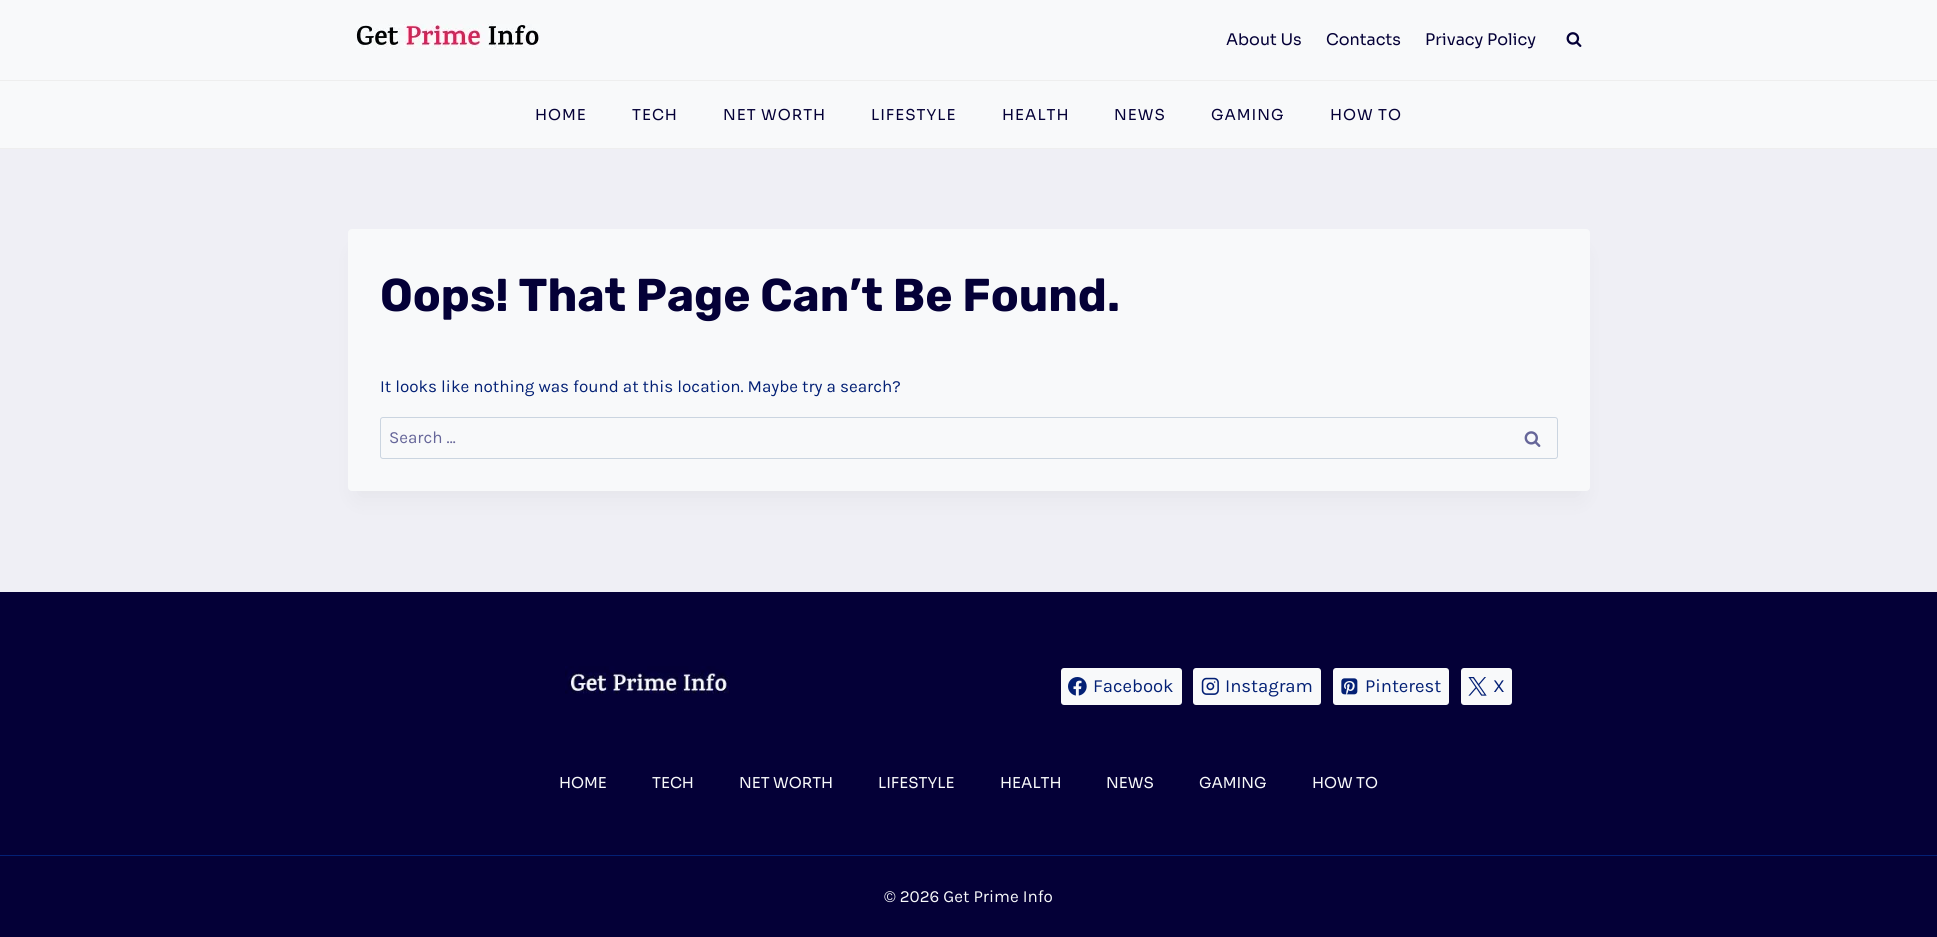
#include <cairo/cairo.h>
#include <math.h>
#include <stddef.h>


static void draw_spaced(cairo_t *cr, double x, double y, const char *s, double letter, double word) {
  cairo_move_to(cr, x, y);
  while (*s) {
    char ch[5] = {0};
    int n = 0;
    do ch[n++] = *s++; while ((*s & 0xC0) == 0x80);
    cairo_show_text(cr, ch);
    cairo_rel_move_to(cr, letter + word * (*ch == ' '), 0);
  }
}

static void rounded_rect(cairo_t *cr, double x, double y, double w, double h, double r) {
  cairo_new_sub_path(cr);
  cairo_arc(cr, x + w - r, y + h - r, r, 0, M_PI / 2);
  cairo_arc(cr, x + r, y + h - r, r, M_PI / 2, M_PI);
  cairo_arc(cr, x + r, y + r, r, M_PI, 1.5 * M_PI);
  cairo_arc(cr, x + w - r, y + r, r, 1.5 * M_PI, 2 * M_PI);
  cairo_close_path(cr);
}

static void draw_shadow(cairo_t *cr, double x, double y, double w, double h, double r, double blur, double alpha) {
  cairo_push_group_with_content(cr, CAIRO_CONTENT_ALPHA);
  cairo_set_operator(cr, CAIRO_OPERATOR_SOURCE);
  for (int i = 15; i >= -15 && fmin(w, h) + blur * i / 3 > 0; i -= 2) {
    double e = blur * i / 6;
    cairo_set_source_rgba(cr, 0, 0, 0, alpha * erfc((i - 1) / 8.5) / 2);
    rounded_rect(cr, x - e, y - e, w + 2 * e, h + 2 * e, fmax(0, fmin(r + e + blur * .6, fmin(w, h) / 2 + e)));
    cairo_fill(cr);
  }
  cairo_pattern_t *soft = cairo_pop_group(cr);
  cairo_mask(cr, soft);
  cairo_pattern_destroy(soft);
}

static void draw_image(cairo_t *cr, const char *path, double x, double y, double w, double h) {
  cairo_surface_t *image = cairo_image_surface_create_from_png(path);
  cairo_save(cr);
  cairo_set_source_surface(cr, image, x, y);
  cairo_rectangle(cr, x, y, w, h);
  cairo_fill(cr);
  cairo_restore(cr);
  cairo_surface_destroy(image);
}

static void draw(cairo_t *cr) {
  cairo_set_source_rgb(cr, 239 / 255.0, 239 / 255.0, 245 / 255.0);
  cairo_paint(cr);
  cairo_set_source_rgb(cr, 248 / 255.0, 249 / 255.0, 250 / 255.0);
  cairo_rectangle(cr, 0, 0, 1937, 80);
  cairo_fill(cr);
  draw_image(cr, "images/1.png", 356, 24, 184, 24);
  draw_image(cr, "images/2.png", 1566, 32, 16, 15);
  cairo_rectangle(cr, 0, 81, 1937, 67);
  cairo_fill(cr);
  cairo_set_source_rgb(cr, 238 / 255.0, 238 / 255.0, 238 / 255.0);
  cairo_rectangle(cr, 0, 80, 1937, 1);
  cairo_fill(cr);
  cairo_rectangle(cr, 0, 148, 1937, 1);
  cairo_fill(cr);
  cairo_set_source_rgb(cr, 0, 0, 0);
  draw_shadow(cr, 358, 254, 1222, 242, 0, 12.5, 0.05);
  cairo_set_source_rgb(cr, 248 / 255.0, 249 / 255.0, 250 / 255.0);
  rounded_rect(cr, 348, 229, 1242, 262, 4);
  cairo_fill(cr);
  rounded_rect(cr, 380.5, 417.5, 1177, 41, 2.5);
  cairo_set_source_rgb(cr, 203 / 255.0, 213 / 255.0, 224 / 255.0);
  cairo_set_line_width(cr, 1);
  cairo_stroke(cr);
  draw_image(cr, "images/3.png", 1524, 431, 17, 16);
  cairo_set_source_rgb(cr, 4 / 255.0, 0, 55 / 255.0);
  cairo_rectangle(cr, 0, 592, 1937, 345);
  cairo_fill(cr);
  draw_image(cr, "images/4.png", 565, 666, 165, 28);
  cairo_set_source_rgb(cr, 248 / 255.0, 249 / 255.0, 250 / 255.0);
  rounded_rect(cr, 1061, 668, 121, 37, 3);
  cairo_fill(cr);
  draw_image(cr, "images/5.png", 1068, 677, 19, 19);
  rounded_rect(cr, 1193, 668, 128, 37, 3);
  cairo_fill(cr);
  draw_image(cr, "images/6.png", 1201, 677, 18, 18);
  rounded_rect(cr, 1333, 668, 116, 37, 3);
  cairo_fill(cr);
  draw_image(cr, "images/7.png", 1341, 678, 17, 17);
  rounded_rect(cr, 1461, 668, 51, 37, 3);
  cairo_fill(cr);
  draw_image(cr, "images/8.png", 1468, 677, 19, 19);
  cairo_set_source_rgb(cr, 3 / 255.0, 32 / 255.0, 117 / 255.0);
  cairo_rectangle(cr, 0, 855, 1937, 1);
  cairo_fill(cr);
  cairo_select_font_face(cr, "Sora", CAIRO_FONT_SLANT_NORMAL, CAIRO_FONT_WEIGHT_NORMAL);
  cairo_set_font_size(cr, 16);
  cairo_set_source_rgb(cr, 4 / 255.0, 0, 55 / 255.0);
  cairo_move_to(cr, 1226, 45);
  cairo_show_text(cr, "About Us");
  cairo_move_to(cr, 1326, 45);
  cairo_show_text(cr, "Contacts");
  cairo_move_to(cr, 1425, 45);
  cairo_show_text(cr, "Privacy Policy");
  cairo_set_font_size(cr, 15);
  draw_spaced(cr, 535, 120, "HOME", 1, 0);
  draw_spaced(cr, 632, 120, "TECH", 1, 0);
  draw_spaced(cr, 723, 120, "NET WORTH", 1, 0);
  draw_spaced(cr, 871, 120, "LIFESTYLE", 1, 0);
  draw_spaced(cr, 1002, 120, "HEALTH", 1, 0);
  draw_spaced(cr, 1114, 120, "NEWS", 1, 0);
  draw_spaced(cr, 1211, 120, "GAMING", 1, 0);
  draw_spaced(cr, 1330, 120, "HOW TO", 1, 0);
  cairo_select_font_face(cr, "Rubik", CAIRO_FONT_SLANT_NORMAL, CAIRO_FONT_WEIGHT_BOLD);
  cairo_set_font_size(cr, 46);
  cairo_move_to(cr, 380, 311);
  cairo_show_text(cr, "Oops! That Page Can’t Be Found.");
  cairo_select_font_face(cr, "Karla", CAIRO_FONT_SLANT_NORMAL, CAIRO_FONT_WEIGHT_NORMAL);
  cairo_set_font_size(cr, 17);
  cairo_set_source_rgb(cr, 3 / 255.0, 32 / 255.0, 117 / 255.0);
  cairo_move_to(cr, 380, 392);
  cairo_show_text(cr, "It looks like nothing was found at this location. Maybe try a search?");
  cairo_set_source_rgb(cr, 102 / 255.0, 102 / 255.0, 153 / 255.0);
  cairo_move_to(cr, 389, 443);
  cairo_show_text(cr, "Search …");
  cairo_set_font_size(cr, 18.5);
  cairo_set_source_rgb(cr, 3 / 255.0, 32 / 255.0, 117 / 255.0);
  cairo_move_to(cr, 1093, 692);
  cairo_show_text(cr, "Facebook");
  cairo_move_to(cr, 1225, 692);
  cairo_show_text(cr, "Instagram");
  cairo_move_to(cr, 1365, 692);
  cairo_show_text(cr, "Pinterest");
  cairo_move_to(cr, 1493, 692);
  cairo_show_text(cr, "X");
  cairo_select_font_face(cr, "Sora", CAIRO_FONT_SLANT_NORMAL, CAIRO_FONT_WEIGHT_NORMAL);
  cairo_set_font_size(cr, 15);
  cairo_set_source_rgb(cr, 248 / 255.0, 249 / 255.0, 250 / 255.0);
  cairo_move_to(cr, 559, 788);
  cairo_show_text(cr, "HOME");
  cairo_move_to(cr, 652, 788);
  cairo_show_text(cr, "TECH");
  cairo_move_to(cr, 739, 788);
  cairo_show_text(cr, "NET WORTH");
  cairo_move_to(cr, 878, 788);
  cairo_show_text(cr, "LIFESTYLE");
  cairo_move_to(cr, 1000, 788);
  cairo_show_text(cr, "HEALTH");
  cairo_move_to(cr, 1106, 788);
  cairo_show_text(cr, "NEWS");
  cairo_move_to(cr, 1199, 788);
  cairo_show_text(cr, "GAMING");
  cairo_move_to(cr, 1312, 788);
  cairo_show_text(cr, "HOW TO");
  cairo_select_font_face(cr, "Karla", CAIRO_FONT_SLANT_NORMAL, CAIRO_FONT_WEIGHT_NORMAL);
  cairo_set_font_size(cr, 17);
  cairo_move_to(cr, 884, 902);
  cairo_show_text(cr, "© 2026 Get Prime Info");
}

int main(void) {
  cairo_surface_t *surface = cairo_image_surface_create(CAIRO_FORMAT_RGB24, 1937, 937);
  cairo_t *cr = cairo_create(surface);
  cairo_font_options_t *options = cairo_font_options_create();
  cairo_font_options_set_hint_metrics(options, CAIRO_HINT_METRICS_OFF);
  cairo_font_options_set_hint_style(options, CAIRO_HINT_STYLE_NONE);
  cairo_set_font_options(cr, options);
  cairo_set_miter_limit(cr, 4);
  draw(cr);
  cairo_surface_write_to_png(surface, "out.png");
  cairo_font_options_destroy(options);
  cairo_destroy(cr);
  cairo_surface_destroy(surface);
  return 0;
}
